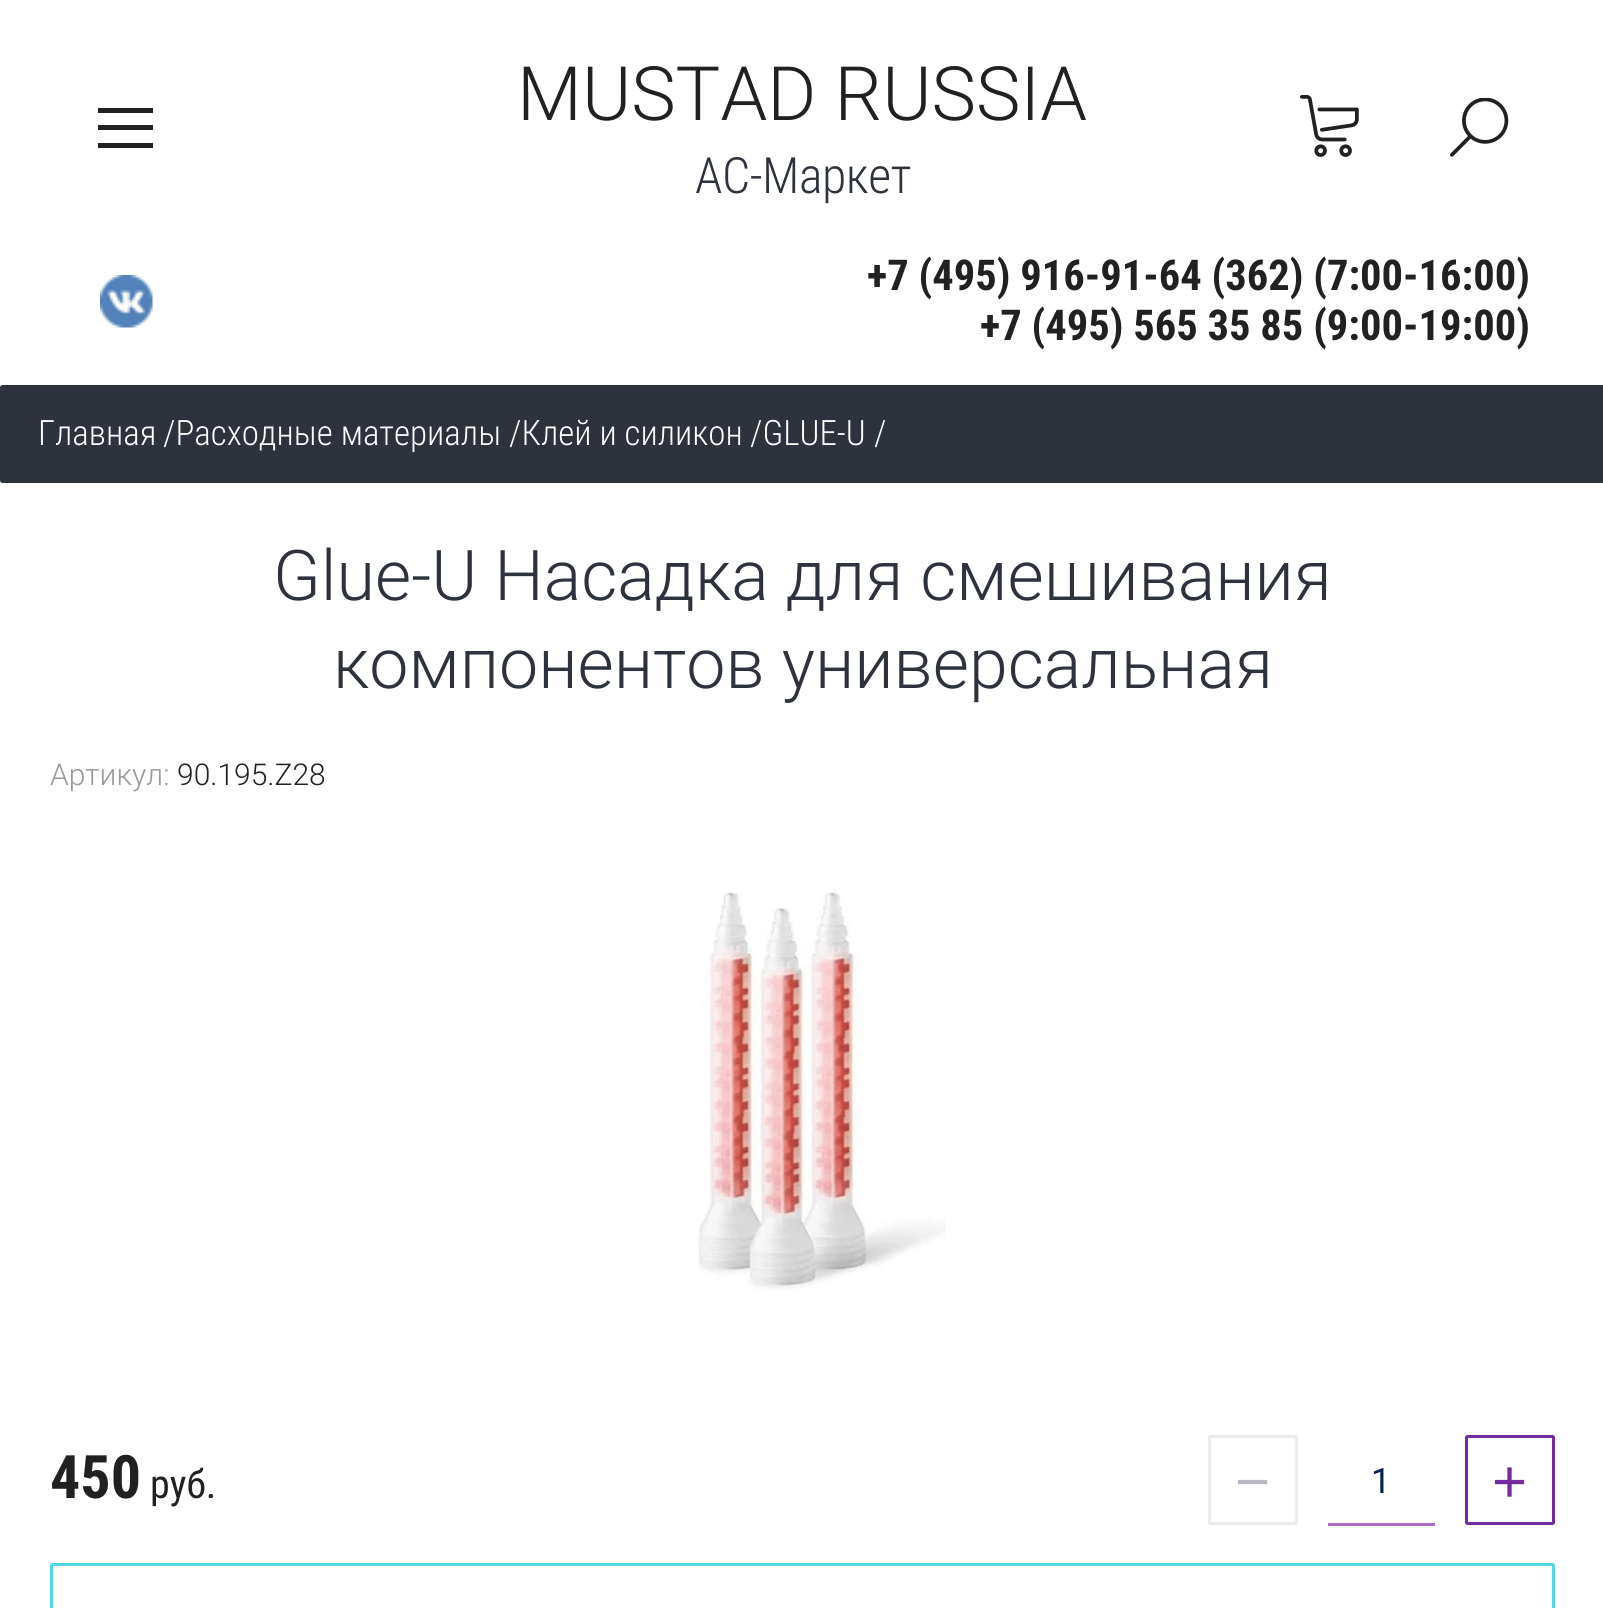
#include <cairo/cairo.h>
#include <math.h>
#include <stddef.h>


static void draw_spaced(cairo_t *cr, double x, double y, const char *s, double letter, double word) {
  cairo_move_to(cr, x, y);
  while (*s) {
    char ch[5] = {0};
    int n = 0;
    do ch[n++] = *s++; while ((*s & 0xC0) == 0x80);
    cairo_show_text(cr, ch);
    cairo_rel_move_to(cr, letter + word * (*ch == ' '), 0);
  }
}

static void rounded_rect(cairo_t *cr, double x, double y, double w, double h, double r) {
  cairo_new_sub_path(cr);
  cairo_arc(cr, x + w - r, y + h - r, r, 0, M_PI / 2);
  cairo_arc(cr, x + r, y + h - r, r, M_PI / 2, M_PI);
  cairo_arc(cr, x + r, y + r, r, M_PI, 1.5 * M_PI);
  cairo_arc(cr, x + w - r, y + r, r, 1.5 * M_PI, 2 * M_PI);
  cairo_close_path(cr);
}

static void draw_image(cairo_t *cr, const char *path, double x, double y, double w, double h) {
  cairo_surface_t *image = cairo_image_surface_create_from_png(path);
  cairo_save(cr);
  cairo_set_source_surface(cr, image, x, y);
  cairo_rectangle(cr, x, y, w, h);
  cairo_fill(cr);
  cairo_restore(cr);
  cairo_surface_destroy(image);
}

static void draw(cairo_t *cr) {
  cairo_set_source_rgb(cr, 1, 1, 1);
  cairo_paint(cr);
  cairo_set_source_rgb(cr, 33 / 255.0, 33 / 255.0, 33 / 255.0);
  cairo_rectangle(cr, 98, 125, 55, 5);
  cairo_fill(cr);
  cairo_rectangle(cr, 98, 108, 55, 5);
  cairo_fill(cr);
  cairo_rectangle(cr, 98, 143, 55, 5);
  cairo_fill(cr);
  draw_image(cr, "images/1.png", 1300, 95, 59, 62);
  draw_image(cr, "images/2.png", 1450, 98, 59, 59);
  draw_image(cr, "images/3.png", 100, 275, 53, 53);
  cairo_set_source_rgb(cr, 46 / 255.0, 50 / 255.0, 61 / 255.0);
  rounded_rect(cr, 0, 385, 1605, 98, 2.5);
  cairo_fill(cr);
  draw_image(cr, "images/4.png", 698, 892, 248, 398);
  rounded_rect(cr, 1209.5, 1436.5, 87, 87, 1);
  cairo_set_source_rgb(cr, 235 / 255.0, 235 / 255.0, 235 / 255.0);
  cairo_set_line_width(cr, 3);
  cairo_stroke(cr);
  cairo_set_source_rgb(cr, 169 / 255.0, 109 / 255.0, 200 / 255.0);
  cairo_rectangle(cr, 1328, 1523, 107, 3);
  cairo_fill(cr);
  rounded_rect(cr, 1466.5, 1436.5, 87, 87, 1);
  cairo_set_source_rgb(cr, 117 / 255.0, 42 / 255.0, 160 / 255.0);
  cairo_stroke(cr);
  rounded_rect(cr, 51.5, 1564.5, 1502, 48, 1);
  cairo_set_source_rgb(cr, 81 / 255.0, 213 / 255.0, 232 / 255.0);
  cairo_stroke(cr);
  cairo_select_font_face(cr, "Roboto Light", CAIRO_FONT_SLANT_NORMAL, CAIRO_FONT_WEIGHT_NORMAL);
  cairo_set_font_size(cr, 75);
  cairo_set_source_rgb(cr, 33 / 255.0, 33 / 255.0, 33 / 255.0);
  cairo_move_to(cr, 517, 120);
  cairo_show_text(cr, "MUSTAD RUSSIA");
  cairo_select_font_face(cr, "Roboto Condensed Light", CAIRO_FONT_SLANT_NORMAL, CAIRO_FONT_WEIGHT_NORMAL);
  cairo_set_font_size(cr, 50);
  cairo_set_source_rgb(cr, 46 / 255.0, 50 / 255.0, 61 / 255.0);
  draw_spaced(cr, 695, 193, "АС-Маркет", -0.5, 0);
  cairo_select_font_face(cr, "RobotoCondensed", CAIRO_FONT_SLANT_NORMAL, CAIRO_FONT_WEIGHT_BOLD);
  cairo_set_font_size(cr, 42.5);
  cairo_set_source_rgb(cr, 33 / 255.0, 33 / 255.0, 33 / 255.0);
  cairo_move_to(cr, 867, 290);
  cairo_show_text(cr, "+7 (495) 916-91-64 (362) (7:00-16:00)");
  cairo_move_to(cr, 980, 340);
  cairo_show_text(cr, "+7 (495) 565 35 85 (9:00-19:00)");
  cairo_select_font_face(cr, "Roboto Condensed Light", CAIRO_FONT_SLANT_NORMAL, CAIRO_FONT_WEIGHT_NORMAL);
  cairo_set_font_size(cr, 35);
  cairo_set_source_rgb(cr, 1, 1, 1);
  cairo_move_to(cr, 38, 445);
  cairo_show_text(cr, "Главная");
  cairo_move_to(cr, 163, 445);
  cairo_show_text(cr, "/Расходные материалы");
  cairo_move_to(cr, 509, 445);
  cairo_show_text(cr, "/Клей и силикон");
  cairo_move_to(cr, 750, 445);
  cairo_show_text(cr, "/GLUE-U");
  cairo_move_to(cr, 874, 445);
  cairo_show_text(cr, "/");
  cairo_select_font_face(cr, "Roboto Light", CAIRO_FONT_SLANT_NORMAL, CAIRO_FONT_WEIGHT_NORMAL);
  cairo_set_font_size(cr, 70);
  cairo_set_source_rgb(cr, 46 / 255.0, 50 / 255.0, 61 / 255.0);
  cairo_move_to(cr, 273, 600);
  cairo_show_text(cr, "Glue-U Насадка для смешивания");
  cairo_move_to(cr, 333, 688);
  cairo_show_text(cr, "компонентов универсальная");
  cairo_set_font_size(cr, 30);
  cairo_set_source_rgb(cr, 153 / 255.0, 153 / 255.0, 153 / 255.0);
  cairo_move_to(cr, 50, 785);
  cairo_show_text(cr, "Артикул:");
  cairo_set_source_rgb(cr, 33 / 255.0, 33 / 255.0, 33 / 255.0);
  cairo_move_to(cr, 177, 785);
  cairo_show_text(cr, "90.195.Z28");
  cairo_select_font_face(cr, "RobotoCondensed", CAIRO_FONT_SLANT_NORMAL, CAIRO_FONT_WEIGHT_BOLD);
  cairo_set_font_size(cr, 60);
  cairo_move_to(cr, 50, 1498);
  cairo_show_text(cr, "450");
  cairo_select_font_face(cr, "RobotoCondensed", CAIRO_FONT_SLANT_NORMAL, CAIRO_FONT_WEIGHT_NORMAL);
  cairo_set_font_size(cr, 40);
  cairo_move_to(cr, 150, 1498);
  cairo_show_text(cr, "руб.");
  cairo_select_font_face(cr, "Liberation Sans", CAIRO_FONT_SLANT_NORMAL, CAIRO_FONT_WEIGHT_NORMAL);
  cairo_set_font_size(cr, 60);
  cairo_set_source_rgb(cr, 187 / 255.0, 183 / 255.0, 194 / 255.0);
  cairo_move_to(cr, 1235, 1502);
  cairo_show_text(cr, "−");
  cairo_select_font_face(cr, "roboto", CAIRO_FONT_SLANT_NORMAL, CAIRO_FONT_WEIGHT_NORMAL);
  cairo_set_font_size(cr, 35);
  cairo_set_source_rgb(cr, 5 / 255.0, 33 / 255.0, 79 / 255.0);
  cairo_move_to(cr, 1371, 1493);
  cairo_show_text(cr, "1");
  cairo_select_font_face(cr, "Liberation Sans", CAIRO_FONT_SLANT_NORMAL, CAIRO_FONT_WEIGHT_NORMAL);
  cairo_set_font_size(cr, 60);
  cairo_set_source_rgb(cr, 117 / 255.0, 42 / 255.0, 160 / 255.0);
  cairo_move_to(cr, 1492, 1502);
  cairo_show_text(cr, "+");
}

int main(void) {
  cairo_surface_t *surface = cairo_image_surface_create(CAIRO_FORMAT_RGB24, 1603, 1608);
  cairo_t *cr = cairo_create(surface);
  cairo_font_options_t *options = cairo_font_options_create();
  cairo_font_options_set_hint_metrics(options, CAIRO_HINT_METRICS_OFF);
  cairo_font_options_set_hint_style(options, CAIRO_HINT_STYLE_NONE);
  cairo_set_font_options(cr, options);
  cairo_set_miter_limit(cr, 4);
  draw(cr);
  cairo_surface_write_to_png(surface, "out.png");
  cairo_font_options_destroy(options);
  cairo_destroy(cr);
  cairo_surface_destroy(surface);
  return 0;
}
